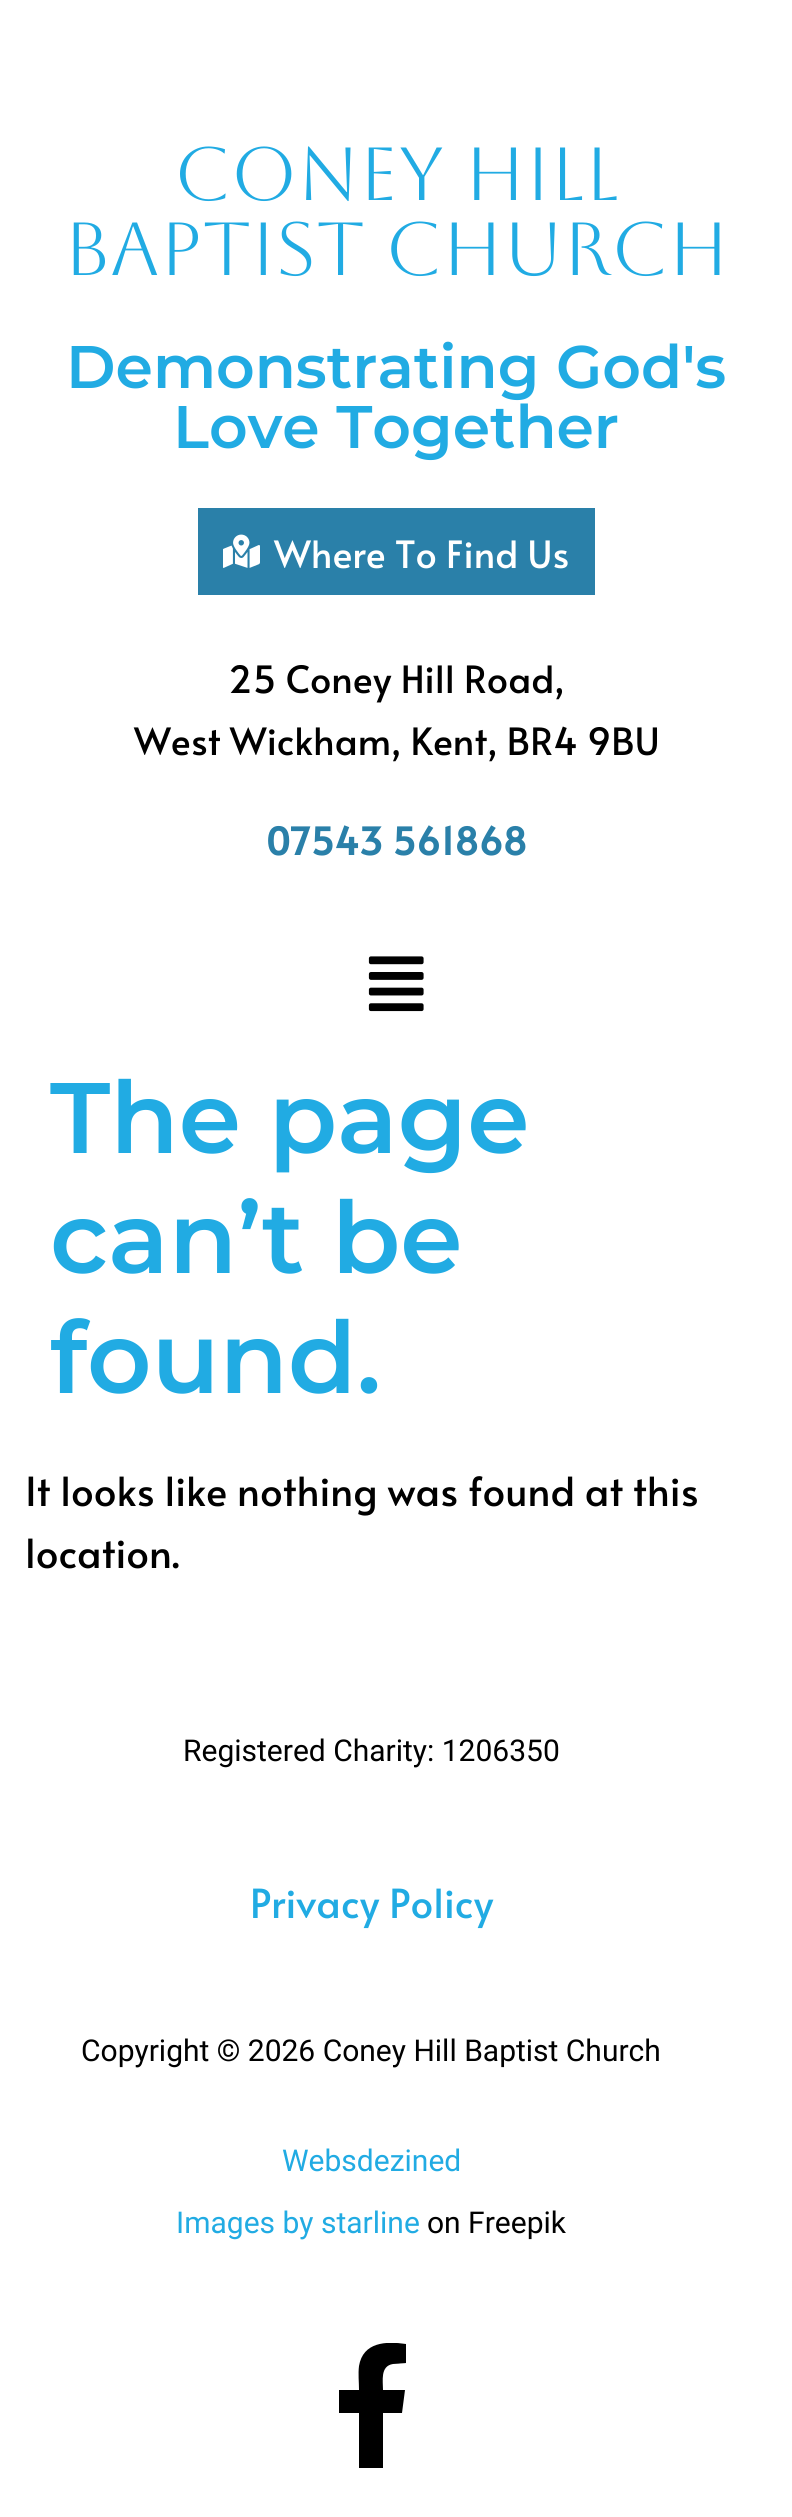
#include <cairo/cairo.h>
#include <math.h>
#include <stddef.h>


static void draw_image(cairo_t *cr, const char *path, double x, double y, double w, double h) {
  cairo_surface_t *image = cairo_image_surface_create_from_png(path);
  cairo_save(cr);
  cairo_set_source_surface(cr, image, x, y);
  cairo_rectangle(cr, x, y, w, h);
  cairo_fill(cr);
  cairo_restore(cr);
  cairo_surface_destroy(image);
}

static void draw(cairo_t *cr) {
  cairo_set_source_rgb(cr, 1, 1, 1);
  cairo_paint(cr);
  cairo_set_source_rgb(cr, 42 / 255.0, 128 / 255.0, 169 / 255.0);
  cairo_rectangle(cr, 198, 508, 397, 87);
  cairo_fill(cr);
  draw_image(cr, "images/1.png", 223, 534, 37, 34);
  draw_image(cr, "images/2.png", 368, 956, 56, 56);
  cairo_save(cr);
  cairo_rectangle(cr, 310, 2343, 125, 125);
  cairo_clip(cr);
  cairo_set_source_rgb(cr, 0, 0, 0);
  cairo_new_path(cr);
  cairo_move_to(cr, 402, 2413);
  cairo_line_to(cr, 405, 2390);
  cairo_line_to(cr, 383, 2390);
  cairo_curve_to(cr, 383, 2381, 380, 2366, 393, 2364);
  cairo_line_to(cr, 406, 2363);
  cairo_line_to(cr, 406, 2344);
  cairo_curve_to(cr, 386, 2341, 363, 2342, 359, 2366);
  cairo_curve_to(cr, 358, 2374, 359, 2382, 359, 2390);
  cairo_line_to(cr, 339, 2390);
  cairo_line_to(cr, 339, 2413);
  cairo_line_to(cr, 359, 2413);
  cairo_line_to(cr, 359, 2468);
  cairo_line_to(cr, 383, 2468);
  cairo_line_to(cr, 383, 2413);
  cairo_close_path(cr);
  cairo_fill(cr);
  cairo_restore(cr);
  cairo_select_font_face(cr, "Aboreto", CAIRO_FONT_SLANT_NORMAL, CAIRO_FONT_WEIGHT_NORMAL);
  cairo_set_font_size(cr, 75);
  cairo_set_source_rgb(cr, 33 / 255.0, 171 / 255.0, 227 / 255.0);
  cairo_move_to(cr, 174, 200);
  cairo_show_text(cr, "coney hill");
  cairo_move_to(cr, 64, 275);
  cairo_show_text(cr, "baptist church");
  cairo_select_font_face(cr, "Montserrat SemiBold", CAIRO_FONT_SLANT_NORMAL, CAIRO_FONT_WEIGHT_NORMAL);
  cairo_set_font_size(cr, 60);
  cairo_move_to(cr, 66, 388);
  cairo_show_text(cr, "Demonstrating God's");
  cairo_move_to(cr, 173, 448);
  cairo_show_text(cr, "Love Together");
  cairo_select_font_face(cr, "Alata", CAIRO_FONT_SLANT_NORMAL, CAIRO_FONT_WEIGHT_NORMAL);
  cairo_set_font_size(cr, 37.5);
  cairo_set_source_rgb(cr, 1, 1, 1);
  cairo_move_to(cr, 274, 568);
  cairo_show_text(cr, "Where To Find Us");
  cairo_set_source_rgb(cr, 0, 0, 0);
  cairo_move_to(cr, 228, 693);
  cairo_show_text(cr, "25 Coney Hill Road,");
  cairo_move_to(cr, 134, 755);
  cairo_show_text(cr, "West Wickham, Kent, BR4 9BU");
  cairo_select_font_face(cr, "Alata", CAIRO_FONT_SLANT_NORMAL, CAIRO_FONT_WEIGHT_BOLD);
  cairo_set_source_rgb(cr, 42 / 255.0, 128 / 255.0, 169 / 255.0);
  cairo_move_to(cr, 266, 855);
  cairo_show_text(cr, "07543 561868");
  cairo_select_font_face(cr, "Montserrat SemiBold", CAIRO_FONT_SLANT_NORMAL, CAIRO_FONT_WEIGHT_NORMAL);
  cairo_set_font_size(cr, 100);
  cairo_set_source_rgb(cr, 33 / 255.0, 171 / 255.0, 227 / 255.0);
  cairo_move_to(cr, 50, 1153);
  cairo_show_text(cr, "The page");
  cairo_move_to(cr, 50, 1273);
  cairo_show_text(cr, "can’t be");
  cairo_move_to(cr, 50, 1393);
  cairo_show_text(cr, "found.");
  cairo_select_font_face(cr, "Alata", CAIRO_FONT_SLANT_NORMAL, CAIRO_FONT_WEIGHT_NORMAL);
  cairo_set_font_size(cr, 40);
  cairo_set_source_rgb(cr, 0, 0, 0);
  cairo_move_to(cr, 25, 1506);
  cairo_show_text(cr, "It looks like nothing was found at this");
  cairo_move_to(cr, 25, 1568);
  cairo_show_text(cr, "location.");
  cairo_select_font_face(cr, "Roboto", CAIRO_FONT_SLANT_NORMAL, CAIRO_FONT_WEIGHT_NORMAL);
  cairo_set_font_size(cr, 30);
  cairo_move_to(cr, 183, 1761);
  cairo_show_text(cr, "Registered Charity: 1206350");
  cairo_select_font_face(cr, "Alata", CAIRO_FONT_SLANT_NORMAL, CAIRO_FONT_WEIGHT_NORMAL);
  cairo_set_font_size(cr, 40);
  cairo_set_source_rgb(cr, 33 / 255.0, 171 / 255.0, 227 / 255.0);
  cairo_move_to(cr, 250, 1918);
  cairo_show_text(cr, "Privacy Policy");
  cairo_select_font_face(cr, "Roboto", CAIRO_FONT_SLANT_NORMAL, CAIRO_FONT_WEIGHT_NORMAL);
  cairo_set_font_size(cr, 30);
  cairo_set_source_rgb(cr, 0, 0, 0);
  cairo_move_to(cr, 81, 2061);
  cairo_show_text(cr, "Copyright © 2026 Coney Hill Baptist Church");
  cairo_set_source_rgb(cr, 33 / 255.0, 171 / 255.0, 227 / 255.0);
  cairo_move_to(cr, 282, 2171);
  cairo_show_text(cr, "Websdezined");
  cairo_move_to(cr, 176, 2233);
  cairo_show_text(cr, "Images by starline");
  cairo_set_source_rgb(cr, 0, 0, 0);
  cairo_move_to(cr, 427, 2233);
  cairo_show_text(cr, "on Freepik");
}

int main(void) {
  cairo_surface_t *surface = cairo_image_surface_create(CAIRO_FORMAT_RGB24, 792, 2517);
  cairo_t *cr = cairo_create(surface);
  cairo_font_options_t *options = cairo_font_options_create();
  cairo_font_options_set_hint_metrics(options, CAIRO_HINT_METRICS_OFF);
  cairo_font_options_set_hint_style(options, CAIRO_HINT_STYLE_NONE);
  cairo_set_font_options(cr, options);
  cairo_set_miter_limit(cr, 4);
  draw(cr);
  cairo_surface_write_to_png(surface, "out.png");
  cairo_font_options_destroy(options);
  cairo_destroy(cr);
  cairo_surface_destroy(surface);
  return 0;
}
